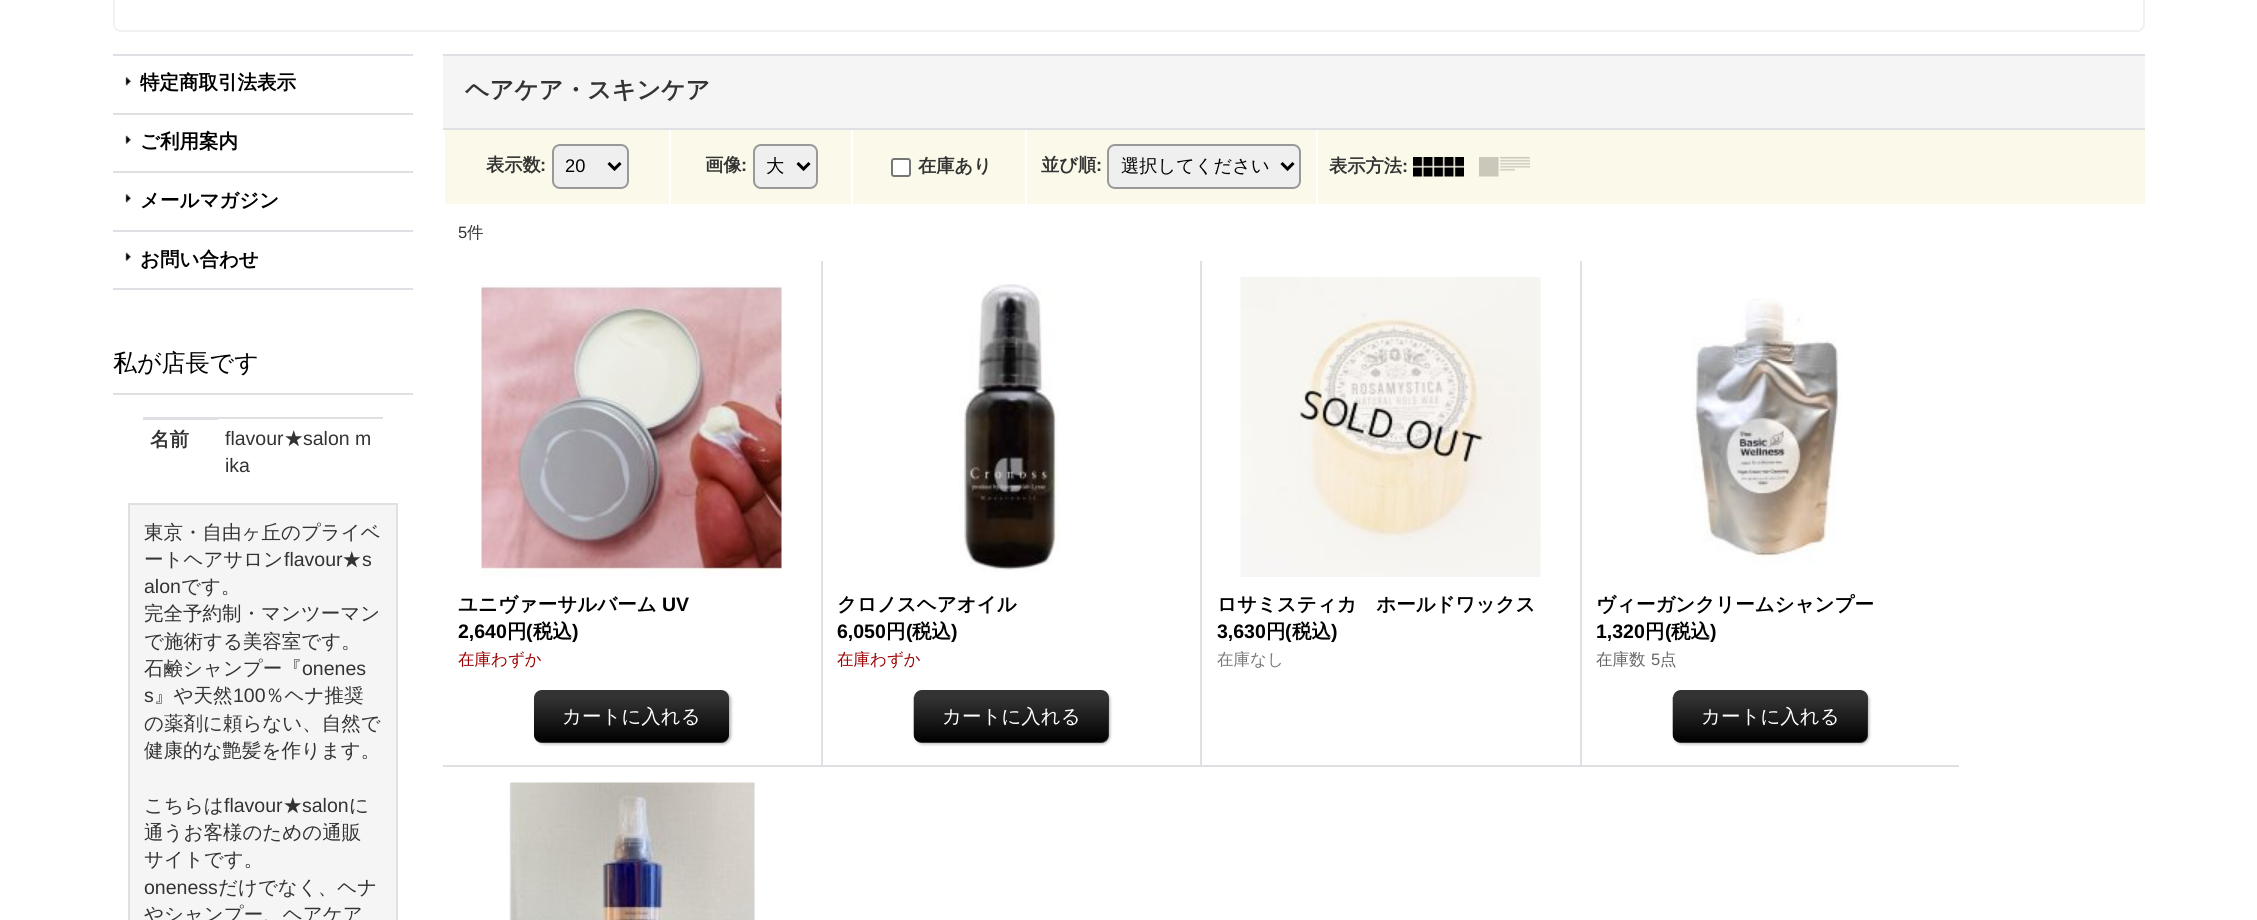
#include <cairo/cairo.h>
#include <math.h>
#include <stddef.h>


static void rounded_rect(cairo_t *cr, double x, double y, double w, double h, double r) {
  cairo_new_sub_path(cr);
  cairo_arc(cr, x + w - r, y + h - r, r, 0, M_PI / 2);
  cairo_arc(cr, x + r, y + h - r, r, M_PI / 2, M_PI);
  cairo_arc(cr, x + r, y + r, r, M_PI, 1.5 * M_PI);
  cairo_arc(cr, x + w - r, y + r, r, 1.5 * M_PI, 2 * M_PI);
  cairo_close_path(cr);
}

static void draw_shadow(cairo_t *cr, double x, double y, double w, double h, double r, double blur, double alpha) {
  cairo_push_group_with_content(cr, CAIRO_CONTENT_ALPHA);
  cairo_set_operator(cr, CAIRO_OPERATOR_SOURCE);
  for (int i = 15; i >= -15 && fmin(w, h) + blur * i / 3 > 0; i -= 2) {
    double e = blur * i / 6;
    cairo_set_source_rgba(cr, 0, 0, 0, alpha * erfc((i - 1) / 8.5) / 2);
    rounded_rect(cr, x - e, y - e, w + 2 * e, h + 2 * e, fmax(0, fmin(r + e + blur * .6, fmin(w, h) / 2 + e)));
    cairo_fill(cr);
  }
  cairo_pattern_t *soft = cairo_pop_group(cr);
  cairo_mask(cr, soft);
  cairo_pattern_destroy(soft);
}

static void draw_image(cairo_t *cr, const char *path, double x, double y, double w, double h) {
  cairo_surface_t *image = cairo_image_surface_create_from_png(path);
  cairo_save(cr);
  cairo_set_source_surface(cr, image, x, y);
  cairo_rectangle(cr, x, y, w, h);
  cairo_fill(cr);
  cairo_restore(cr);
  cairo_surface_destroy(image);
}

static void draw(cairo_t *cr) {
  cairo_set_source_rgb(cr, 1, 1, 1);
  cairo_paint(cr);
  rounded_rect(cr, 114, -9, 2030, 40, 7);
  cairo_set_source_rgb(cr, 241 / 255.0, 241 / 255.0, 241 / 255.0);
  cairo_stroke(cr);
  cairo_set_source_rgb(cr, 224 / 255.0, 223 / 255.0, 227 / 255.0);
  cairo_rectangle(cr, 113, 54, 300, 2);
  cairo_fill(cr);
  draw_image(cr, "images/1.png", 125, 77, 6, 9);
  cairo_rectangle(cr, 113, 113, 300, 2);
  cairo_fill(cr);
  draw_image(cr, "images/2.png", 125, 135, 6, 9);
  cairo_rectangle(cr, 113, 171, 300, 2);
  cairo_fill(cr);
  draw_image(cr, "images/1.png", 125, 194, 6, 9);
  cairo_rectangle(cr, 113, 230, 300, 2);
  cairo_fill(cr);
  cairo_rectangle(cr, 113, 288, 300, 2);
  cairo_fill(cr);
  draw_image(cr, "images/2.png", 125, 252, 6, 9);
  cairo_rectangle(cr, 113, 393, 300, 2);
  cairo_fill(cr);
  cairo_rectangle(cr, 143, 417, 75, 3);
  cairo_fill(cr);
  cairo_rectangle(cr, 218, 417, 165, 2);
  cairo_fill(cr);
  cairo_set_source_rgb(cr, 245 / 255.0, 245 / 255.0, 245 / 255.0);
  cairo_rectangle(cr, 129, 504, 268, 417);
  cairo_fill_preserve(cr);
  cairo_set_source_rgb(cr, 224 / 255.0, 223 / 255.0, 227 / 255.0);
  cairo_stroke(cr);
  cairo_set_source_rgb(cr, 245 / 255.0, 245 / 255.0, 245 / 255.0);
  cairo_rectangle(cr, 443, 56, 1702, 72);
  cairo_fill(cr);
  cairo_set_source_rgb(cr, 224 / 255.0, 223 / 255.0, 227 / 255.0);
  cairo_rectangle(cr, 443, 54, 1702, 2);
  cairo_fill(cr);
  cairo_set_source_rgb(cr, 251 / 255.0, 250 / 255.0, 234 / 255.0);
  cairo_rectangle(cr, 445, 130, 1700, 74);
  cairo_fill(cr);
  cairo_set_source_rgb(cr, 1, 1, 1);
  cairo_rectangle(cr, 669, 129, 2, 75);
  cairo_fill(cr);
  cairo_rectangle(cr, 851, 129, 2, 75);
  cairo_fill(cr);
  cairo_rectangle(cr, 1025, 129, 2, 75);
  cairo_fill(cr);
  cairo_rectangle(cr, 1316, 129, 2, 75);
  cairo_fill(cr);
  cairo_set_source_rgb(cr, 224 / 255.0, 223 / 255.0, 227 / 255.0);
  cairo_rectangle(cr, 443, 128, 1702, 2);
  cairo_fill(cr);
  cairo_set_source_rgb(cr, 239 / 255.0, 239 / 255.0, 239 / 255.0);
  rounded_rect(cr, 553, 145, 75, 43, 7);
  cairo_fill_preserve(cr);
  cairo_set_source_rgb(cr, 153 / 255.0, 153 / 255.0, 153 / 255.0);
  cairo_stroke(cr);
  cairo_new_path(cr);
  cairo_move_to(cr, 608.5, 163);
  cairo_line_to(cr, 614.5, 169);
  cairo_line_to(cr, 620.5, 163);
  cairo_set_source_rgb(cr, 0, 0, 0);
  cairo_set_line_width(cr, 3);
  cairo_stroke(cr);
  cairo_set_source_rgb(cr, 239 / 255.0, 239 / 255.0, 239 / 255.0);
  rounded_rect(cr, 754, 145, 63, 43, 7);
  cairo_fill_preserve(cr);
  cairo_set_source_rgb(cr, 153 / 255.0, 153 / 255.0, 153 / 255.0);
  cairo_set_line_width(cr, 2);
  cairo_stroke(cr);
  cairo_new_path(cr);
  cairo_move_to(cr, 797.5, 163);
  cairo_line_to(cr, 803.5, 169);
  cairo_line_to(cr, 809.5, 163);
  cairo_set_source_rgb(cr, 0, 0, 0);
  cairo_set_line_width(cr, 3);
  cairo_stroke(cr);
  cairo_set_source_rgb(cr, 1, 1, 1);
  rounded_rect(cr, 892, 159, 18, 17, 2);
  cairo_fill_preserve(cr);
  cairo_set_source_rgb(cr, 118 / 255.0, 118 / 255.0, 118 / 255.0);
  cairo_set_line_width(cr, 2);
  cairo_stroke(cr);
  cairo_set_source_rgb(cr, 239 / 255.0, 239 / 255.0, 239 / 255.0);
  rounded_rect(cr, 1108, 145, 192, 43, 7);
  cairo_fill_preserve(cr);
  cairo_set_source_rgb(cr, 153 / 255.0, 153 / 255.0, 153 / 255.0);
  cairo_stroke(cr);
  cairo_new_path(cr);
  cairo_move_to(cr, 1281.5, 163);
  cairo_line_to(cr, 1287.5, 169);
  cairo_line_to(cr, 1293.5, 163);
  cairo_set_source_rgb(cr, 0, 0, 0);
  cairo_set_line_width(cr, 3);
  cairo_stroke(cr);
  draw_image(cr, "images/3.png", 1413, 157, 51, 20);
  draw_image(cr, "images/4.png", 1479, 157, 51, 20);
  cairo_set_source_rgb(cr, 224 / 255.0, 223 / 255.0, 227 / 255.0);
  cairo_rectangle(cr, 821, 261, 2, 506);
  cairo_fill(cr);
  cairo_rectangle(cr, 443, 765, 379, 2);
  cairo_fill(cr);
  draw_image(cr, "images/5.png", 481, 285, 301, 292);
  cairo_set_source_rgb(cr, 0, 0, 0);
  draw_shadow(cr, 536, 692, 195, 52, 8, 1.5, 0.3);
  cairo_set_source_rgb(cr, 51 / 255.0, 51 / 255.0, 51 / 255.0);
  rounded_rect(cr, 534, 690, 195, 53, 8);
  cairo_fill(cr);
  draw_image(cr, "images/6.png", 534, 697, 195, 45);
  cairo_set_source_rgb(cr, 224 / 255.0, 223 / 255.0, 227 / 255.0);
  cairo_rectangle(cr, 1200, 261, 2, 506);
  cairo_fill(cr);
  cairo_rectangle(cr, 822, 765, 380, 2);
  cairo_fill(cr);
  draw_image(cr, "images/7.png", 959, 284, 101, 288);
  cairo_set_source_rgb(cr, 0, 0, 0);
  draw_shadow(cr, 915, 692, 195, 52, 8, 1.5, 0.3);
  cairo_set_source_rgb(cr, 51 / 255.0, 51 / 255.0, 51 / 255.0);
  rounded_rect(cr, 914, 690, 195, 53, 8);
  cairo_fill(cr);
  draw_image(cr, "images/8.png", 913, 697, 196, 45);
  cairo_set_source_rgb(cr, 224 / 255.0, 223 / 255.0, 227 / 255.0);
  cairo_rectangle(cr, 1580, 261, 2, 506);
  cairo_fill(cr);
  cairo_rectangle(cr, 1202, 765, 757, 2);
  cairo_fill(cr);
  draw_image(cr, "images/9.png", 1240, 277, 301, 300);
  draw_image(cr, "images/10.png", 1692, 298, 150, 267);
  cairo_set_source_rgb(cr, 0, 0, 0);
  draw_shadow(cr, 1674, 692, 195, 52, 8, 1.5, 0.3);
  cairo_set_source_rgb(cr, 51 / 255.0, 51 / 255.0, 51 / 255.0);
  rounded_rect(cr, 1673, 690, 195, 53, 8);
  cairo_fill(cr);
  draw_image(cr, "images/8.png", 1672, 697, 196, 45);
  draw_image(cr, "images/11.png", 509, 782, 247, 138);
  cairo_select_font_face(cr, "WenQuanYi Zen Hei", CAIRO_FONT_SLANT_NORMAL, CAIRO_FONT_WEIGHT_BOLD);
  cairo_set_font_size(cr, 19.5);
  cairo_set_source_rgb(cr, 0, 0, 0);
  cairo_move_to(cr, 140, 89);
  cairo_show_text(cr, "特定商取引法表示");
  cairo_move_to(cr, 140, 148);
  cairo_show_text(cr, "ご利用案内");
  cairo_move_to(cr, 140, 207);
  cairo_show_text(cr, "メールマガジン");
  cairo_move_to(cr, 140, 266);
  cairo_show_text(cr, "お問い合わせ");
  cairo_select_font_face(cr, "WenQuanYi Zen Hei Medium", CAIRO_FONT_SLANT_NORMAL, CAIRO_FONT_WEIGHT_NORMAL);
  cairo_set_font_size(cr, 24);
  cairo_move_to(cr, 113, 371);
  cairo_show_text(cr, "私が店長です");
  cairo_select_font_face(cr, "WenQuanYi Zen Hei", CAIRO_FONT_SLANT_NORMAL, CAIRO_FONT_WEIGHT_BOLD);
  cairo_set_font_size(cr, 19.5);
  cairo_set_source_rgb(cr, 51 / 255.0, 51 / 255.0, 51 / 255.0);
  cairo_move_to(cr, 150, 446);
  cairo_show_text(cr, "名前");
  cairo_select_font_face(cr, "Liberation Sans", CAIRO_FONT_SLANT_NORMAL, CAIRO_FONT_WEIGHT_NORMAL);
  cairo_move_to(cr, 225, 445);
  cairo_show_text(cr, "flavour");
  cairo_select_font_face(cr, "WenQuanYi Zen Hei Medium", CAIRO_FONT_SLANT_NORMAL, CAIRO_FONT_WEIGHT_NORMAL);
  cairo_move_to(cr, 284, 445);
  cairo_show_text(cr, "★");
  cairo_select_font_face(cr, "Liberation Sans", CAIRO_FONT_SLANT_NORMAL, CAIRO_FONT_WEIGHT_NORMAL);
  cairo_move_to(cr, 303, 445);
  cairo_show_text(cr, "salon m");
  cairo_move_to(cr, 225, 472);
  cairo_show_text(cr, "ika");
  cairo_select_font_face(cr, "WenQuanYi Zen Hei Medium", CAIRO_FONT_SLANT_NORMAL, CAIRO_FONT_WEIGHT_NORMAL);
  cairo_move_to(cr, 144, 539);
  cairo_show_text(cr, "東京・自由ヶ丘のプライベ");
  cairo_move_to(cr, 144, 566);
  cairo_show_text(cr, "ートヘアサロン");
  cairo_select_font_face(cr, "Liberation Sans", CAIRO_FONT_SLANT_NORMAL, CAIRO_FONT_WEIGHT_NORMAL);
  cairo_move_to(cr, 284, 566);
  cairo_show_text(cr, "flavour");
  cairo_select_font_face(cr, "WenQuanYi Zen Hei Medium", CAIRO_FONT_SLANT_NORMAL, CAIRO_FONT_WEIGHT_NORMAL);
  cairo_move_to(cr, 342, 566);
  cairo_show_text(cr, "★");
  cairo_select_font_face(cr, "Liberation Sans", CAIRO_FONT_SLANT_NORMAL, CAIRO_FONT_WEIGHT_NORMAL);
  cairo_move_to(cr, 362, 566);
  cairo_show_text(cr, "s");
  cairo_move_to(cr, 144, 593);
  cairo_show_text(cr, "alon");
  cairo_select_font_face(cr, "WenQuanYi Zen Hei Medium", CAIRO_FONT_SLANT_NORMAL, CAIRO_FONT_WEIGHT_NORMAL);
  cairo_move_to(cr, 181, 593);
  cairo_show_text(cr, "です。");
  cairo_move_to(cr, 144, 620);
  cairo_show_text(cr, "完全予約制・マンツーマン");
  cairo_move_to(cr, 144, 648);
  cairo_show_text(cr, "で施術する美容室です。");
  cairo_move_to(cr, 144, 675);
  cairo_show_text(cr, "石鹸シャンプー『");
  cairo_select_font_face(cr, "Liberation Sans", CAIRO_FONT_SLANT_NORMAL, CAIRO_FONT_WEIGHT_NORMAL);
  cairo_move_to(cr, 302, 675);
  cairo_show_text(cr, "onenes");
  cairo_move_to(cr, 144, 702);
  cairo_show_text(cr, "s");
  cairo_select_font_face(cr, "WenQuanYi Zen Hei Medium", CAIRO_FONT_SLANT_NORMAL, CAIRO_FONT_WEIGHT_NORMAL);
  cairo_move_to(cr, 154, 702);
  cairo_show_text(cr, "』や天然");
  cairo_select_font_face(cr, "Liberation Sans", CAIRO_FONT_SLANT_NORMAL, CAIRO_FONT_WEIGHT_NORMAL);
  cairo_move_to(cr, 233, 702);
  cairo_show_text(cr, "100");
  cairo_select_font_face(cr, "WenQuanYi Zen Hei Medium", CAIRO_FONT_SLANT_NORMAL, CAIRO_FONT_WEIGHT_NORMAL);
  cairo_move_to(cr, 265, 702);
  cairo_show_text(cr, "％ヘナ推奨");
  cairo_move_to(cr, 144, 730);
  cairo_show_text(cr, "の薬剤に頼らない、自然で");
  cairo_move_to(cr, 144, 757);
  cairo_show_text(cr, "健康的な艶髪を作ります。");
  cairo_move_to(cr, 144, 812);
  cairo_show_text(cr, "こちらは");
  cairo_select_font_face(cr, "Liberation Sans", CAIRO_FONT_SLANT_NORMAL, CAIRO_FONT_WEIGHT_NORMAL);
  cairo_move_to(cr, 224, 812);
  cairo_show_text(cr, "flavour");
  cairo_select_font_face(cr, "WenQuanYi Zen Hei Medium", CAIRO_FONT_SLANT_NORMAL, CAIRO_FONT_WEIGHT_NORMAL);
  cairo_move_to(cr, 283, 812);
  cairo_show_text(cr, "★");
  cairo_select_font_face(cr, "Liberation Sans", CAIRO_FONT_SLANT_NORMAL, CAIRO_FONT_WEIGHT_NORMAL);
  cairo_move_to(cr, 302, 812);
  cairo_show_text(cr, "salon");
  cairo_select_font_face(cr, "WenQuanYi Zen Hei Medium", CAIRO_FONT_SLANT_NORMAL, CAIRO_FONT_WEIGHT_NORMAL);
  cairo_move_to(cr, 349, 812);
  cairo_show_text(cr, "に");
  cairo_move_to(cr, 144, 839);
  cairo_show_text(cr, "通うお客様のための通販");
  cairo_move_to(cr, 144, 866);
  cairo_show_text(cr, "サイトです。");
  cairo_select_font_face(cr, "Liberation Sans", CAIRO_FONT_SLANT_NORMAL, CAIRO_FONT_WEIGHT_NORMAL);
  cairo_move_to(cr, 144, 894);
  cairo_show_text(cr, "oneness");
  cairo_select_font_face(cr, "WenQuanYi Zen Hei Medium", CAIRO_FONT_SLANT_NORMAL, CAIRO_FONT_WEIGHT_NORMAL);
  cairo_move_to(cr, 218, 894);
  cairo_show_text(cr, "だけでなく、ヘナ");
  cairo_move_to(cr, 144, 921);
  cairo_show_text(cr, "やシャンプー、ヘアケア");
  cairo_select_font_face(cr, "WenQuanYi Zen Hei", CAIRO_FONT_SLANT_NORMAL, CAIRO_FONT_WEIGHT_BOLD);
  cairo_set_font_size(cr, 24);
  cairo_move_to(cr, 465, 98);
  cairo_show_text(cr, "ヘアケア・スキンケア");
  cairo_set_font_size(cr, 18.25);
  cairo_move_to(cr, 486, 171);
  cairo_show_text(cr, "表示数");
  cairo_select_font_face(cr, "Liberation Sans", CAIRO_FONT_SLANT_NORMAL, CAIRO_FONT_WEIGHT_BOLD);
  cairo_move_to(cr, 540, 171);
  cairo_show_text(cr, ":");
  cairo_select_font_face(cr, "Liberation Sans", CAIRO_FONT_SLANT_NORMAL, CAIRO_FONT_WEIGHT_NORMAL);
  cairo_set_source_rgb(cr, 0, 0, 0);
  cairo_move_to(cr, 565, 172);
  cairo_show_text(cr, "20");
  cairo_select_font_face(cr, "WenQuanYi Zen Hei", CAIRO_FONT_SLANT_NORMAL, CAIRO_FONT_WEIGHT_BOLD);
  cairo_set_source_rgb(cr, 51 / 255.0, 51 / 255.0, 51 / 255.0);
  cairo_move_to(cr, 705, 171);
  cairo_show_text(cr, "画像");
  cairo_select_font_face(cr, "Liberation Sans", CAIRO_FONT_SLANT_NORMAL, CAIRO_FONT_WEIGHT_BOLD);
  cairo_move_to(cr, 741, 171);
  cairo_show_text(cr, ":");
  cairo_select_font_face(cr, "WenQuanYi Zen Hei Medium", CAIRO_FONT_SLANT_NORMAL, CAIRO_FONT_WEIGHT_NORMAL);
  cairo_set_source_rgb(cr, 0, 0, 0);
  cairo_move_to(cr, 766, 172);
  cairo_show_text(cr, "大");
  cairo_select_font_face(cr, "WenQuanYi Zen Hei", CAIRO_FONT_SLANT_NORMAL, CAIRO_FONT_WEIGHT_BOLD);
  cairo_set_source_rgb(cr, 51 / 255.0, 51 / 255.0, 51 / 255.0);
  cairo_move_to(cr, 918, 172);
  cairo_show_text(cr, "在庫あり");
  cairo_move_to(cr, 1041, 171);
  cairo_show_text(cr, "並び順");
  cairo_select_font_face(cr, "Liberation Sans", CAIRO_FONT_SLANT_NORMAL, CAIRO_FONT_WEIGHT_BOLD);
  cairo_move_to(cr, 1096, 171);
  cairo_show_text(cr, ":");
  cairo_select_font_face(cr, "WenQuanYi Zen Hei Medium", CAIRO_FONT_SLANT_NORMAL, CAIRO_FONT_WEIGHT_NORMAL);
  cairo_set_source_rgb(cr, 0, 0, 0);
  cairo_move_to(cr, 1121, 172);
  cairo_show_text(cr, "選択してください");
  cairo_select_font_face(cr, "WenQuanYi Zen Hei", CAIRO_FONT_SLANT_NORMAL, CAIRO_FONT_WEIGHT_BOLD);
  cairo_set_source_rgb(cr, 51 / 255.0, 51 / 255.0, 51 / 255.0);
  cairo_move_to(cr, 1329, 172);
  cairo_show_text(cr, "表示方法");
  cairo_select_font_face(cr, "Liberation Sans", CAIRO_FONT_SLANT_NORMAL, CAIRO_FONT_WEIGHT_BOLD);
  cairo_move_to(cr, 1402, 172);
  cairo_show_text(cr, ":");
  cairo_select_font_face(cr, "Liberation Sans", CAIRO_FONT_SLANT_NORMAL, CAIRO_FONT_WEIGHT_NORMAL);
  cairo_set_font_size(cr, 16.5);
  cairo_move_to(cr, 458, 238);
  cairo_show_text(cr, "5");
  cairo_select_font_face(cr, "WenQuanYi Zen Hei Medium", CAIRO_FONT_SLANT_NORMAL, CAIRO_FONT_WEIGHT_NORMAL);
  cairo_move_to(cr, 467, 238);
  cairo_show_text(cr, "件");
  cairo_select_font_face(cr, "WenQuanYi Zen Hei", CAIRO_FONT_SLANT_NORMAL, CAIRO_FONT_WEIGHT_BOLD);
  cairo_set_font_size(cr, 19.5);
  cairo_set_source_rgb(cr, 0, 0, 0);
  cairo_move_to(cr, 458, 611);
  cairo_show_text(cr, "ユニヴァーサルバーム");
  cairo_select_font_face(cr, "Liberation Sans", CAIRO_FONT_SLANT_NORMAL, CAIRO_FONT_WEIGHT_BOLD);
  cairo_move_to(cr, 662, 611);
  cairo_show_text(cr, "UV");
  cairo_move_to(cr, 458, 638);
  cairo_show_text(cr, "2,640");
  cairo_select_font_face(cr, "WenQuanYi Zen Hei", CAIRO_FONT_SLANT_NORMAL, CAIRO_FONT_WEIGHT_BOLD);
  cairo_move_to(cr, 507, 638);
  cairo_show_text(cr, "円");
  cairo_select_font_face(cr, "Liberation Sans", CAIRO_FONT_SLANT_NORMAL, CAIRO_FONT_WEIGHT_BOLD);
  cairo_move_to(cr, 526, 638);
  cairo_show_text(cr, "(");
  cairo_select_font_face(cr, "WenQuanYi Zen Hei", CAIRO_FONT_SLANT_NORMAL, CAIRO_FONT_WEIGHT_BOLD);
  cairo_move_to(cr, 533, 638);
  cairo_show_text(cr, "税込");
  cairo_select_font_face(cr, "Liberation Sans", CAIRO_FONT_SLANT_NORMAL, CAIRO_FONT_WEIGHT_BOLD);
  cairo_move_to(cr, 572, 638);
  cairo_show_text(cr, ")");
  cairo_select_font_face(cr, "WenQuanYi Zen Hei Medium", CAIRO_FONT_SLANT_NORMAL, CAIRO_FONT_WEIGHT_NORMAL);
  cairo_set_font_size(cr, 16.5);
  cairo_set_source_rgb(cr, 153 / 255.0, 0, 0);
  cairo_move_to(cr, 458, 665);
  cairo_show_text(cr, "在庫わずか");
  cairo_set_font_size(cr, 19.5);
  cairo_set_source_rgb(cr, 1, 1, 1);
  cairo_move_to(cr, 562, 723);
  cairo_show_text(cr, "カートに入れる");
  cairo_select_font_face(cr, "WenQuanYi Zen Hei", CAIRO_FONT_SLANT_NORMAL, CAIRO_FONT_WEIGHT_BOLD);
  cairo_set_source_rgb(cr, 0, 0, 0);
  cairo_move_to(cr, 837, 611);
  cairo_show_text(cr, "クロノスヘアオイル");
  cairo_select_font_face(cr, "Liberation Sans", CAIRO_FONT_SLANT_NORMAL, CAIRO_FONT_WEIGHT_BOLD);
  cairo_move_to(cr, 837, 638);
  cairo_show_text(cr, "6,050");
  cairo_select_font_face(cr, "WenQuanYi Zen Hei", CAIRO_FONT_SLANT_NORMAL, CAIRO_FONT_WEIGHT_BOLD);
  cairo_move_to(cr, 886, 638);
  cairo_show_text(cr, "円");
  cairo_select_font_face(cr, "Liberation Sans", CAIRO_FONT_SLANT_NORMAL, CAIRO_FONT_WEIGHT_BOLD);
  cairo_move_to(cr, 906, 638);
  cairo_show_text(cr, "(");
  cairo_select_font_face(cr, "WenQuanYi Zen Hei", CAIRO_FONT_SLANT_NORMAL, CAIRO_FONT_WEIGHT_BOLD);
  cairo_move_to(cr, 912, 638);
  cairo_show_text(cr, "税込");
  cairo_select_font_face(cr, "Liberation Sans", CAIRO_FONT_SLANT_NORMAL, CAIRO_FONT_WEIGHT_BOLD);
  cairo_move_to(cr, 951, 638);
  cairo_show_text(cr, ")");
  cairo_select_font_face(cr, "WenQuanYi Zen Hei Medium", CAIRO_FONT_SLANT_NORMAL, CAIRO_FONT_WEIGHT_NORMAL);
  cairo_set_font_size(cr, 16.5);
  cairo_set_source_rgb(cr, 153 / 255.0, 0, 0);
  cairo_move_to(cr, 837, 665);
  cairo_show_text(cr, "在庫わずか");
  cairo_set_font_size(cr, 19.5);
  cairo_set_source_rgb(cr, 1, 1, 1);
  cairo_move_to(cr, 942, 723);
  cairo_show_text(cr, "カートに入れる");
  cairo_select_font_face(cr, "WenQuanYi Zen Hei", CAIRO_FONT_SLANT_NORMAL, CAIRO_FONT_WEIGHT_BOLD);
  cairo_set_source_rgb(cr, 0, 0, 0);
  cairo_move_to(cr, 1217, 611);
  cairo_show_text(cr, "ロサミスティカ　ホールドワックス");
  cairo_select_font_face(cr, "Liberation Sans", CAIRO_FONT_SLANT_NORMAL, CAIRO_FONT_WEIGHT_BOLD);
  cairo_move_to(cr, 1217, 638);
  cairo_show_text(cr, "3,630");
  cairo_select_font_face(cr, "WenQuanYi Zen Hei", CAIRO_FONT_SLANT_NORMAL, CAIRO_FONT_WEIGHT_BOLD);
  cairo_move_to(cr, 1266, 638);
  cairo_show_text(cr, "円");
  cairo_select_font_face(cr, "Liberation Sans", CAIRO_FONT_SLANT_NORMAL, CAIRO_FONT_WEIGHT_BOLD);
  cairo_move_to(cr, 1285, 638);
  cairo_show_text(cr, "(");
  cairo_select_font_face(cr, "WenQuanYi Zen Hei", CAIRO_FONT_SLANT_NORMAL, CAIRO_FONT_WEIGHT_BOLD);
  cairo_move_to(cr, 1292, 638);
  cairo_show_text(cr, "税込");
  cairo_select_font_face(cr, "Liberation Sans", CAIRO_FONT_SLANT_NORMAL, CAIRO_FONT_WEIGHT_BOLD);
  cairo_move_to(cr, 1331, 638);
  cairo_show_text(cr, ")");
  cairo_select_font_face(cr, "WenQuanYi Zen Hei Medium", CAIRO_FONT_SLANT_NORMAL, CAIRO_FONT_WEIGHT_NORMAL);
  cairo_set_font_size(cr, 16.5);
  cairo_set_source_rgb(cr, 119 / 255.0, 119 / 255.0, 119 / 255.0);
  cairo_move_to(cr, 1217, 665);
  cairo_show_text(cr, "在庫なし");
  cairo_select_font_face(cr, "WenQuanYi Zen Hei", CAIRO_FONT_SLANT_NORMAL, CAIRO_FONT_WEIGHT_BOLD);
  cairo_set_font_size(cr, 19.5);
  cairo_set_source_rgb(cr, 0, 0, 0);
  cairo_move_to(cr, 1596, 611);
  cairo_show_text(cr, "ヴィーガンクリームシャンプー");
  cairo_select_font_face(cr, "Liberation Sans", CAIRO_FONT_SLANT_NORMAL, CAIRO_FONT_WEIGHT_BOLD);
  cairo_move_to(cr, 1596, 638);
  cairo_show_text(cr, "1,320");
  cairo_select_font_face(cr, "WenQuanYi Zen Hei", CAIRO_FONT_SLANT_NORMAL, CAIRO_FONT_WEIGHT_BOLD);
  cairo_move_to(cr, 1645, 638);
  cairo_show_text(cr, "円");
  cairo_select_font_face(cr, "Liberation Sans", CAIRO_FONT_SLANT_NORMAL, CAIRO_FONT_WEIGHT_BOLD);
  cairo_move_to(cr, 1665, 638);
  cairo_show_text(cr, "(");
  cairo_select_font_face(cr, "WenQuanYi Zen Hei", CAIRO_FONT_SLANT_NORMAL, CAIRO_FONT_WEIGHT_BOLD);
  cairo_move_to(cr, 1671, 638);
  cairo_show_text(cr, "税込");
  cairo_select_font_face(cr, "Liberation Sans", CAIRO_FONT_SLANT_NORMAL, CAIRO_FONT_WEIGHT_BOLD);
  cairo_move_to(cr, 1710, 638);
  cairo_show_text(cr, ")");
  cairo_select_font_face(cr, "WenQuanYi Zen Hei Medium", CAIRO_FONT_SLANT_NORMAL, CAIRO_FONT_WEIGHT_NORMAL);
  cairo_set_font_size(cr, 16.5);
  cairo_set_source_rgb(cr, 102 / 255.0, 102 / 255.0, 102 / 255.0);
  cairo_move_to(cr, 1596, 665);
  cairo_show_text(cr, "在庫数");
  cairo_select_font_face(cr, "Liberation Sans", CAIRO_FONT_SLANT_NORMAL, CAIRO_FONT_WEIGHT_NORMAL);
  cairo_move_to(cr, 1651, 665);
  cairo_show_text(cr, "5");
  cairo_select_font_face(cr, "WenQuanYi Zen Hei Medium", CAIRO_FONT_SLANT_NORMAL, CAIRO_FONT_WEIGHT_NORMAL);
  cairo_move_to(cr, 1660, 665);
  cairo_show_text(cr, "点");
  cairo_set_font_size(cr, 19.5);
  cairo_set_source_rgb(cr, 1, 1, 1);
  cairo_move_to(cr, 1701, 723);
  cairo_show_text(cr, "カートに入れる");
}

int main(void) {
  cairo_surface_t *surface = cairo_image_surface_create(CAIRO_FORMAT_RGB24, 2257, 920);
  cairo_t *cr = cairo_create(surface);
  cairo_font_options_t *options = cairo_font_options_create();
  cairo_font_options_set_hint_metrics(options, CAIRO_HINT_METRICS_OFF);
  cairo_font_options_set_hint_style(options, CAIRO_HINT_STYLE_NONE);
  cairo_set_font_options(cr, options);
  cairo_set_miter_limit(cr, 4);
  draw(cr);
  cairo_surface_write_to_png(surface, "out.png");
  cairo_font_options_destroy(options);
  cairo_destroy(cr);
  cairo_surface_destroy(surface);
  return 0;
}
